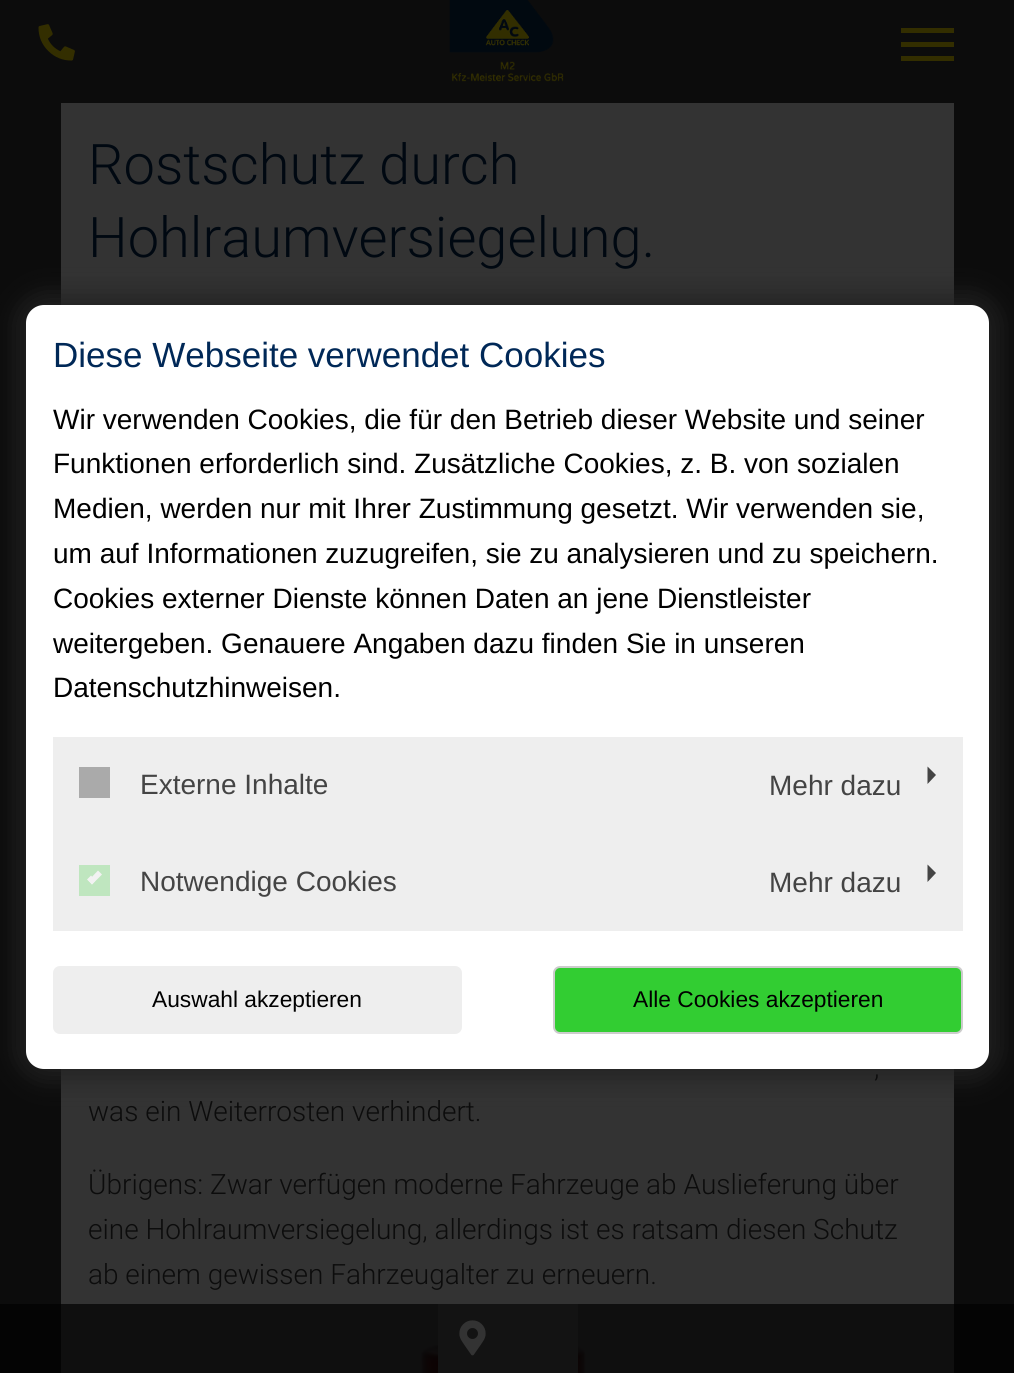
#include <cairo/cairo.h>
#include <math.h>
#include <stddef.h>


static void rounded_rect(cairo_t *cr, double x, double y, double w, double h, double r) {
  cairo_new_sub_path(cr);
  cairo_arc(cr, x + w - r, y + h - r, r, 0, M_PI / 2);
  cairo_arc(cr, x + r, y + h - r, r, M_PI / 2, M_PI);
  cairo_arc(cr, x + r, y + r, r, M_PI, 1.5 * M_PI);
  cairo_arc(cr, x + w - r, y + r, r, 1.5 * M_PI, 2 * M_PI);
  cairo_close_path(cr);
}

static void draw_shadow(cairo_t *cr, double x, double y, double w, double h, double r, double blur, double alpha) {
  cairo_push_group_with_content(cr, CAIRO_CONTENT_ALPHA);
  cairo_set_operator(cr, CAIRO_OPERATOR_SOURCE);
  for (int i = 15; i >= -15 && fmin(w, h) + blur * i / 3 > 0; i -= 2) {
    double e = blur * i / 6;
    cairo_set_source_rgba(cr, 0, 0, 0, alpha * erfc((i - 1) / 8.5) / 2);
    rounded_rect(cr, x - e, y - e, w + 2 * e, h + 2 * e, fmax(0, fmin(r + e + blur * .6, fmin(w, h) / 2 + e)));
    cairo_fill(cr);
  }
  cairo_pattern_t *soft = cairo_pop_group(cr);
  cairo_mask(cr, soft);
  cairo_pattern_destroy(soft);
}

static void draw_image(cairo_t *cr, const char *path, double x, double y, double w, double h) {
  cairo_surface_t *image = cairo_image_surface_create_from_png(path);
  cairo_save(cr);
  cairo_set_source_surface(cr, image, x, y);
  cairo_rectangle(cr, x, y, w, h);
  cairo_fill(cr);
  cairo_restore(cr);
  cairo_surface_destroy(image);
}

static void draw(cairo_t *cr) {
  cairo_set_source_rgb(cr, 12 / 255.0, 12 / 255.0, 12 / 255.0);
  cairo_paint(cr);
  cairo_set_source_rgb(cr, 4 / 255.0, 4 / 255.0, 4 / 255.0);
  cairo_rectangle(cr, 0, 1304, 1014, 69);
  cairo_fill(cr);
  draw_image(cr, "images/1.png", 38, 24, 37, 37);
  draw_image(cr, "images/2.png", 449, 0, 115, 82);
  cairo_set_source_rgb(cr, 51 / 255.0, 46 / 255.0, 0);
  cairo_rectangle(cr, 901, 28, 53, 5);
  cairo_fill(cr);
  cairo_rectangle(cr, 901, 42, 53, 5);
  cairo_fill(cr);
  cairo_rectangle(cr, 901, 56, 53, 5);
  cairo_fill(cr);
  cairo_set_source_rgb(cr, 51 / 255.0, 51 / 255.0, 51 / 255.0);
  cairo_rectangle(cr, 61, 103, 893, 1201);
  cairo_fill(cr);
  cairo_set_source_rgb(cr, 15 / 255.0, 15 / 255.0, 15 / 255.0);
  cairo_rectangle(cr, 61, 1304, 893, 69);
  cairo_fill(cr);
  draw_image(cr, "images/3.png", 410, 1330, 185, 43);
  cairo_set_source_rgb(cr, 19 / 255.0, 19 / 255.0, 19 / 255.0);
  cairo_rectangle(cr, 438, 1304, 140, 69);
  cairo_fill(cr);
  draw_image(cr, "images/4.png", 459, 1320, 27, 36);
  cairo_set_source_rgb(cr, 34 / 255.0, 34 / 255.0, 34 / 255.0);
  draw_shadow(cr, 18, 296, 980, 782, 26, 13, 1);
  cairo_set_source_rgb(cr, 1, 1, 1);
  rounded_rect(cr, 26, 305, 963, 764, 18);
  cairo_fill(cr);
  cairo_set_source_rgb(cr, 238 / 255.0, 238 / 255.0, 238 / 255.0);
  cairo_rectangle(cr, 53, 737, 910, 194);
  cairo_fill(cr);
  cairo_set_source_rgb(cr, 170 / 255.0, 170 / 255.0, 170 / 255.0);
  cairo_rectangle(cr, 79, 767, 31, 31);
  cairo_fill(cr);
  cairo_set_source_rgb(cr, 68 / 255.0, 68 / 255.0, 68 / 255.0);
  cairo_new_path(cr);
  cairo_move_to(cr, 927.5, 784);
  cairo_line_to(cr, 927.5, 766.5);
  cairo_line_to(cr, 936, 775);
  cairo_close_path(cr);
  cairo_fill(cr);
  cairo_set_source_rgb(cr, 191 / 255.0, 230 / 255.0, 191 / 255.0);
  cairo_rectangle(cr, 79, 865, 31, 31);
  cairo_fill(cr);
  cairo_set_source_rgb(cr, 242 / 255.0, 242 / 255.0, 242 / 255.0);
  cairo_new_path(cr);
  cairo_move_to(cr, 98, 870.5);
  cairo_line_to(cr, 102, 874.5);
  cairo_line_to(cr, 92, 884.5);
  cairo_line_to(cr, 88.5, 880.5);
  cairo_close_path(cr);
  cairo_fill(cr);
  cairo_new_path(cr);
  cairo_move_to(cr, 91, 875.5);
  cairo_line_to(cr, 95.5, 880.5);
  cairo_line_to(cr, 92, 884.5);
  cairo_line_to(cr, 87, 879.5);
  cairo_close_path(cr);
  cairo_fill(cr);
  cairo_set_source_rgb(cr, 68 / 255.0, 68 / 255.0, 68 / 255.0);
  cairo_new_path(cr);
  cairo_move_to(cr, 927.5, 882);
  cairo_line_to(cr, 927.5, 864.5);
  cairo_line_to(cr, 936, 873);
  cairo_close_path(cr);
  cairo_fill(cr);
  cairo_set_source_rgb(cr, 238 / 255.0, 238 / 255.0, 238 / 255.0);
  rounded_rect(cr, 54, 967, 407, 66, 6);
  cairo_fill_preserve(cr);
  cairo_stroke(cr);
  cairo_set_source_rgb(cr, 50 / 255.0, 205 / 255.0, 50 / 255.0);
  rounded_rect(cr, 554, 967, 408, 66, 6);
  cairo_fill_preserve(cr);
  cairo_set_source_rgb(cr, 204 / 255.0, 204 / 255.0, 204 / 255.0);
  cairo_stroke(cr);
  cairo_select_font_face(cr, "Roboto Light", CAIRO_FONT_SLANT_NORMAL, CAIRO_FONT_WEIGHT_NORMAL);
  cairo_set_font_size(cr, 56);
  cairo_set_source_rgb(cr, 0, 8 / 255.0, 17 / 255.0);
  cairo_move_to(cr, 88, 184);
  cairo_show_text(cr, "Rostschutz durch");
  cairo_move_to(cr, 88, 257);
  cairo_show_text(cr, "Hohlraumversiegelung.");
  cairo_set_font_size(cr, 28);
  cairo_set_source_rgb(cr, 12 / 255.0, 12 / 255.0, 12 / 255.0);
  cairo_move_to(cr, 874, 1077);
  cairo_show_text(cr, ",");
  cairo_move_to(cr, 88, 1121);
  cairo_show_text(cr, "was ein Weiterrosten verhindert.");
  cairo_move_to(cr, 88, 1194);
  cairo_show_text(cr, "Übrigens: Zwar verfügen moderne Fahrzeuge ab Auslieferung über");
  cairo_move_to(cr, 88, 1239);
  cairo_show_text(cr, "eine Hohlraumversiegelung, allerdings ist es ratsam diesen Schutz");
  cairo_move_to(cr, 88, 1284);
  cairo_show_text(cr, "ab einem gewissen Fahrzeugalter zu erneuern.");
  cairo_select_font_face(cr, "Liberation Sans", CAIRO_FONT_SLANT_NORMAL, CAIRO_FONT_WEIGHT_NORMAL);
  cairo_set_font_size(cr, 35);
  cairo_set_source_rgb(cr, 0, 40 / 255.0, 87 / 255.0);
  cairo_move_to(cr, 53, 367);
  cairo_show_text(cr, "Diese Webseite verwendet Cookies");
  cairo_set_font_size(cr, 28);
  cairo_set_source_rgb(cr, 0, 0, 0);
  cairo_move_to(cr, 53, 429);
  cairo_show_text(cr, "Wir verwenden Cookies, die für den Betrieb dieser Website und seiner");
  cairo_move_to(cr, 53, 473);
  cairo_show_text(cr, "Funktionen erforderlich sind. Zusätzliche Cookies, z. B. von sozialen");
  cairo_move_to(cr, 53, 518);
  cairo_show_text(cr, "Medien, werden nur mit Ihrer Zustimmung gesetzt. Wir verwenden sie,");
  cairo_move_to(cr, 53, 563);
  cairo_show_text(cr, "um auf Informationen zuzugreifen, sie zu analysieren und zu speichern.");
  cairo_move_to(cr, 53, 608);
  cairo_show_text(cr, "Cookies externer Dienste können Daten an jene Dienstleister");
  cairo_move_to(cr, 53, 653);
  cairo_show_text(cr, "weitergeben. Genauere Angaben dazu finden Sie in unseren");
  cairo_move_to(cr, 53, 697);
  cairo_show_text(cr, "Datenschutzhinweisen.");
  cairo_set_source_rgb(cr, 68 / 255.0, 68 / 255.0, 68 / 255.0);
  cairo_move_to(cr, 140, 794);
  cairo_show_text(cr, "Externe Inhalte");
  cairo_move_to(cr, 769, 795);
  cairo_show_text(cr, "Mehr dazu");
  cairo_move_to(cr, 140, 891);
  cairo_show_text(cr, "Notwendige Cookies");
  cairo_move_to(cr, 769, 892);
  cairo_show_text(cr, "Mehr dazu");
  cairo_set_font_size(cr, 22.75);
  cairo_set_source_rgb(cr, 0, 0, 0);
  cairo_move_to(cr, 152, 1007);
  cairo_show_text(cr, "Auswahl akzeptieren");
  cairo_move_to(cr, 633, 1007);
  cairo_show_text(cr, "Alle Cookies akzeptieren");
}

int main(void) {
  cairo_surface_t *surface = cairo_image_surface_create(CAIRO_FORMAT_RGB24, 1014, 1373);
  cairo_t *cr = cairo_create(surface);
  cairo_font_options_t *options = cairo_font_options_create();
  cairo_font_options_set_hint_metrics(options, CAIRO_HINT_METRICS_OFF);
  cairo_font_options_set_hint_style(options, CAIRO_HINT_STYLE_NONE);
  cairo_set_font_options(cr, options);
  cairo_set_miter_limit(cr, 4);
  draw(cr);
  cairo_surface_write_to_png(surface, "out.png");
  cairo_font_options_destroy(options);
  cairo_destroy(cr);
  cairo_surface_destroy(surface);
  return 0;
}
